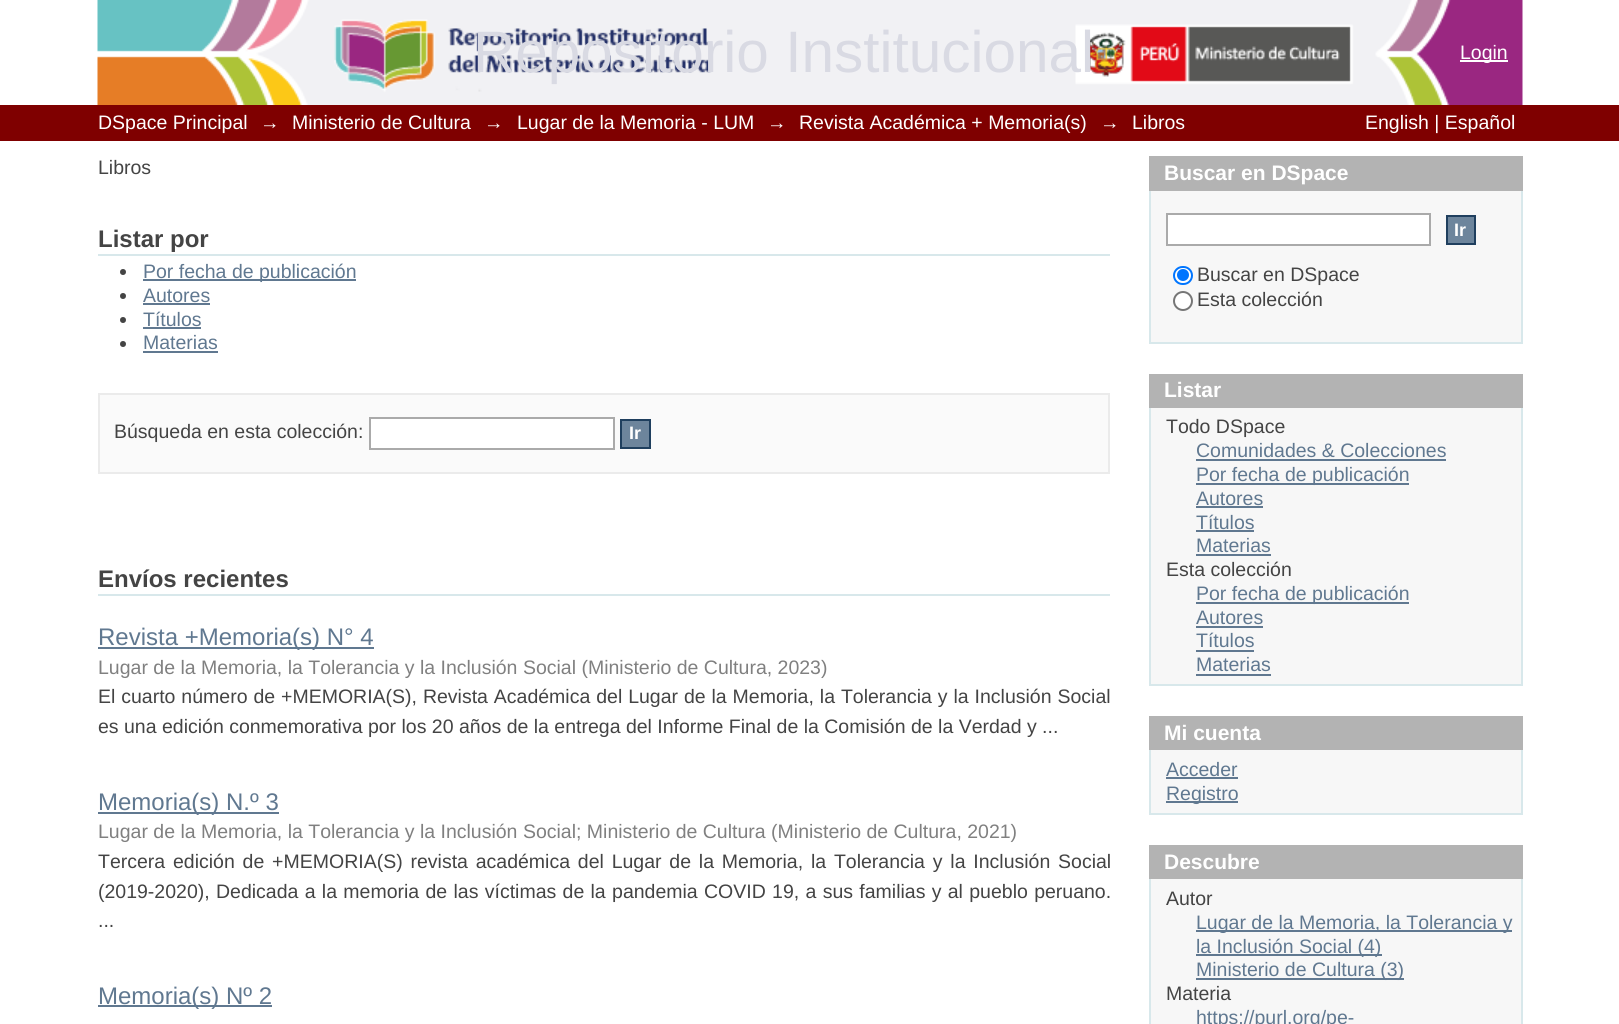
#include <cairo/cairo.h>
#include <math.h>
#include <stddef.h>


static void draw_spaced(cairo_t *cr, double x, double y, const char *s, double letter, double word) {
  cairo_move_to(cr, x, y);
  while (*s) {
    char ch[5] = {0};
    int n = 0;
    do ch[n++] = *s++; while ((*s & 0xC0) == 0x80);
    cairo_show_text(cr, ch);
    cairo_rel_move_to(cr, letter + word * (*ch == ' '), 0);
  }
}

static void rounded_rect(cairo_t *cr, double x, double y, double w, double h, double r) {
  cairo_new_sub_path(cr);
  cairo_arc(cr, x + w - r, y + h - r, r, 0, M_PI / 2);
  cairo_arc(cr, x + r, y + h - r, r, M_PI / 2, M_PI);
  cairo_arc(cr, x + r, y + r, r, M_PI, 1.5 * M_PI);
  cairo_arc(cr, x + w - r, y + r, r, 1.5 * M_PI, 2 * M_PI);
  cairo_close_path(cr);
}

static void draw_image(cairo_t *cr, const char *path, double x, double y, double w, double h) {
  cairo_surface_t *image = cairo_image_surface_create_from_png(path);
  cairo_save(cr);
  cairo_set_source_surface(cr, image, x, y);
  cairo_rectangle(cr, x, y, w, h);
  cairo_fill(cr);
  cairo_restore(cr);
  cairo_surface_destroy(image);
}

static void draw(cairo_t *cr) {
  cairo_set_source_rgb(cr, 1, 1, 1);
  cairo_paint(cr);
  draw_image(cr, "images/1.png", 97, 0, 1426, 105);
  cairo_set_source_rgb(cr, 1, 1, 1);
  cairo_rectangle(cr, 1460, 60, 48, 2);
  cairo_fill(cr);
  cairo_set_source_rgb(cr, 127 / 255.0, 0, 0);
  cairo_rectangle(cr, 0, 105, 1619, 36);
  cairo_fill(cr);
  cairo_set_source_rgb(cr, 216 / 255.0, 232 / 255.0, 235 / 255.0);
  cairo_rectangle(cr, 98, 254, 1012, 2);
  cairo_fill(cr);
  cairo_set_source_rgb(cr, 68 / 255.0, 68 / 255.0, 68 / 255.0);
  cairo_arc(cr, 123, 272, 3, 0, 2 * M_PI);
  cairo_fill(cr);
  cairo_set_source_rgb(cr, 96 / 255.0, 120 / 255.0, 144 / 255.0);
  cairo_rectangle(cr, 143, 279, 213, 2);
  cairo_fill(cr);
  cairo_set_source_rgb(cr, 68 / 255.0, 68 / 255.0, 68 / 255.0);
  cairo_arc(cr, 123, 296, 3, 0, 2 * M_PI);
  cairo_fill(cr);
  cairo_set_source_rgb(cr, 96 / 255.0, 120 / 255.0, 144 / 255.0);
  cairo_rectangle(cr, 143, 303, 67, 2);
  cairo_fill(cr);
  cairo_set_source_rgb(cr, 68 / 255.0, 68 / 255.0, 68 / 255.0);
  cairo_arc(cr, 123, 320, 3, 0, 2 * M_PI);
  cairo_fill(cr);
  cairo_set_source_rgb(cr, 96 / 255.0, 120 / 255.0, 144 / 255.0);
  cairo_rectangle(cr, 143, 327, 58, 2);
  cairo_fill(cr);
  cairo_set_source_rgb(cr, 68 / 255.0, 68 / 255.0, 68 / 255.0);
  cairo_arc(cr, 123, 344, 3, 0, 2 * M_PI);
  cairo_fill(cr);
  cairo_set_source_rgb(cr, 96 / 255.0, 120 / 255.0, 144 / 255.0);
  cairo_rectangle(cr, 143, 351, 75, 2);
  cairo_fill(cr);
  cairo_set_source_rgb(cr, 250 / 255.0, 250 / 255.0, 250 / 255.0);
  cairo_rectangle(cr, 99, 394, 1010, 79);
  cairo_fill_preserve(cr);
  cairo_set_source_rgb(cr, 235 / 255.0, 235 / 255.0, 235 / 255.0);
  cairo_stroke(cr);
  cairo_set_source_rgb(cr, 1, 1, 1);
  cairo_rectangle(cr, 370, 418, 244, 31);
  cairo_fill_preserve(cr);
  cairo_set_source_rgb(cr, 170 / 255.0, 170 / 255.0, 170 / 255.0);
  cairo_stroke(cr);
  cairo_set_source_rgb(cr, 109 / 255.0, 133 / 255.0, 156 / 255.0);
  cairo_rectangle(cr, 621, 420, 29, 28);
  cairo_fill_preserve(cr);
  cairo_set_source_rgb(cr, 31 / 255.0, 63 / 255.0, 94 / 255.0);
  cairo_stroke(cr);
  cairo_set_source_rgb(cr, 216 / 255.0, 232 / 255.0, 235 / 255.0);
  cairo_rectangle(cr, 98, 594, 1012, 2);
  cairo_fill(cr);
  cairo_set_source_rgb(cr, 96 / 255.0, 120 / 255.0, 144 / 255.0);
  cairo_rectangle(cr, 98, 647, 276, 2);
  cairo_fill(cr);
  cairo_rectangle(cr, 98, 812, 181, 2);
  cairo_fill(cr);
  cairo_rectangle(cr, 98, 1005, 174, 2);
  cairo_fill(cr);
  cairo_set_source_rgb(cr, 179 / 255.0, 179 / 255.0, 179 / 255.0);
  cairo_rectangle(cr, 1149, 156, 374, 35);
  cairo_fill(cr);
  cairo_set_source_rgb(cr, 247 / 255.0, 247 / 255.0, 247 / 255.0);
  cairo_rectangle(cr, 1151, 191, 370, 151);
  cairo_fill(cr);
  cairo_set_source_rgb(cr, 216 / 255.0, 232 / 255.0, 235 / 255.0);
  cairo_rectangle(cr, 1521, 191, 2, 153);
  cairo_fill(cr);
  cairo_rectangle(cr, 1149, 342, 374, 2);
  cairo_fill(cr);
  cairo_rectangle(cr, 1149, 191, 2, 153);
  cairo_fill(cr);
  cairo_set_source_rgb(cr, 1, 1, 1);
  cairo_rectangle(cr, 1167, 214, 263, 31);
  cairo_fill_preserve(cr);
  cairo_set_source_rgb(cr, 170 / 255.0, 170 / 255.0, 170 / 255.0);
  cairo_stroke(cr);
  cairo_set_source_rgb(cr, 109 / 255.0, 133 / 255.0, 156 / 255.0);
  cairo_rectangle(cr, 1447, 216, 28, 28);
  cairo_fill_preserve(cr);
  cairo_set_source_rgb(cr, 31 / 255.0, 63 / 255.0, 94 / 255.0);
  cairo_stroke(cr);
  cairo_set_source_rgb(cr, 1, 1, 1);
  rounded_rect(cr, 1174, 267, 18, 17, 8.5);
  cairo_fill_preserve(cr);
  cairo_set_source_rgb(cr, 0, 117 / 255.0, 1);
  cairo_stroke(cr);
  cairo_arc(cr, 1183, 275, 6, 0, 2 * M_PI);
  cairo_fill(cr);
  cairo_set_source_rgb(cr, 1, 1, 1);
  cairo_arc(cr, 1183, 301, 9, 0, 2 * M_PI);
  cairo_fill_preserve(cr);
  cairo_set_source_rgb(cr, 118 / 255.0, 118 / 255.0, 118 / 255.0);
  cairo_stroke(cr);
  cairo_set_source_rgb(cr, 179 / 255.0, 179 / 255.0, 179 / 255.0);
  cairo_rectangle(cr, 1149, 374, 374, 34);
  cairo_fill(cr);
  cairo_set_source_rgb(cr, 247 / 255.0, 247 / 255.0, 247 / 255.0);
  cairo_rectangle(cr, 1151, 408, 370, 276);
  cairo_fill(cr);
  cairo_set_source_rgb(cr, 216 / 255.0, 232 / 255.0, 235 / 255.0);
  cairo_rectangle(cr, 1521, 408, 2, 278);
  cairo_fill(cr);
  cairo_rectangle(cr, 1149, 684, 374, 2);
  cairo_fill(cr);
  cairo_rectangle(cr, 1149, 408, 2, 278);
  cairo_fill(cr);
  cairo_set_source_rgb(cr, 96 / 255.0, 120 / 255.0, 144 / 255.0);
  cairo_rectangle(cr, 1196, 459, 250, 2);
  cairo_fill(cr);
  cairo_rectangle(cr, 1196, 483, 213, 2);
  cairo_fill(cr);
  cairo_rectangle(cr, 1196, 506, 67, 2);
  cairo_fill(cr);
  cairo_rectangle(cr, 1196, 530, 58, 2);
  cairo_fill(cr);
  cairo_rectangle(cr, 1196, 554, 75, 2);
  cairo_fill(cr);
  cairo_rectangle(cr, 1196, 602, 213, 2);
  cairo_fill(cr);
  cairo_rectangle(cr, 1196, 626, 67, 2);
  cairo_fill(cr);
  cairo_rectangle(cr, 1196, 650, 58, 2);
  cairo_fill(cr);
  cairo_rectangle(cr, 1196, 674, 75, 2);
  cairo_fill(cr);
  cairo_set_source_rgb(cr, 179 / 255.0, 179 / 255.0, 179 / 255.0);
  cairo_rectangle(cr, 1149, 716, 374, 34);
  cairo_fill(cr);
  cairo_set_source_rgb(cr, 247 / 255.0, 247 / 255.0, 247 / 255.0);
  cairo_rectangle(cr, 1151, 750, 370, 63);
  cairo_fill(cr);
  cairo_set_source_rgb(cr, 216 / 255.0, 232 / 255.0, 235 / 255.0);
  cairo_rectangle(cr, 1521, 750, 2, 65);
  cairo_fill(cr);
  cairo_rectangle(cr, 1149, 813, 374, 2);
  cairo_fill(cr);
  cairo_rectangle(cr, 1149, 750, 2, 65);
  cairo_fill(cr);
  cairo_set_source_rgb(cr, 96 / 255.0, 120 / 255.0, 144 / 255.0);
  cairo_rectangle(cr, 1166, 777, 72, 2);
  cairo_fill(cr);
  cairo_rectangle(cr, 1166, 801, 72, 2);
  cairo_fill(cr);
  cairo_set_source_rgb(cr, 179 / 255.0, 179 / 255.0, 179 / 255.0);
  cairo_rectangle(cr, 1149, 845, 374, 34);
  cairo_fill(cr);
  cairo_set_source_rgb(cr, 247 / 255.0, 247 / 255.0, 247 / 255.0);
  cairo_rectangle(cr, 1151, 879, 370, 145);
  cairo_fill(cr);
  cairo_set_source_rgb(cr, 216 / 255.0, 232 / 255.0, 235 / 255.0);
  cairo_rectangle(cr, 1521, 879, 2, 145);
  cairo_fill(cr);
  cairo_rectangle(cr, 1149, 879, 2, 145);
  cairo_fill(cr);
  cairo_set_source_rgb(cr, 96 / 255.0, 120 / 255.0, 144 / 255.0);
  cairo_rectangle(cr, 1196, 930, 316, 2);
  cairo_fill(cr);
  cairo_rectangle(cr, 1196, 954, 186, 2);
  cairo_fill(cr);
  cairo_rectangle(cr, 1196, 978, 208, 2);
  cairo_fill(cr);
  cairo_select_font_face(cr, "Liberation Sans", CAIRO_FONT_SLANT_NORMAL, CAIRO_FONT_WEIGHT_NORMAL);
  cairo_set_font_size(cr, 58.5);
  cairo_set_source_rgb(cr, 217 / 255.0, 218 / 255.0, 227 / 255.0);
  cairo_move_to(cr, 473, 72);
  cairo_show_text(cr, "Repositorio Institucional");
  cairo_set_font_size(cr, 19.5);
  cairo_set_source_rgb(cr, 1, 1, 1);
  cairo_move_to(cr, 1460, 59);
  cairo_show_text(cr, "Login");
  cairo_move_to(cr, 98, 129);
  cairo_show_text(cr, "DSpace Principal");
  cairo_move_to(cr, 260, 129);
  cairo_show_text(cr, "→");
  cairo_move_to(cr, 292, 129);
  cairo_show_text(cr, "Ministerio de Cultura");
  cairo_move_to(cr, 484, 129);
  cairo_show_text(cr, "→");
  cairo_move_to(cr, 517, 129);
  cairo_show_text(cr, "Lugar de la Memoria - LUM");
  cairo_move_to(cr, 767, 129);
  cairo_show_text(cr, "→");
  cairo_move_to(cr, 799, 129);
  cairo_show_text(cr, "Revista Académica + Memoria(s)");
  cairo_move_to(cr, 1100, 129);
  cairo_show_text(cr, "→");
  cairo_move_to(cr, 1132, 129);
  cairo_show_text(cr, "Libros");
  cairo_move_to(cr, 1365, 129);
  cairo_show_text(cr, "English | Español");
  cairo_set_source_rgb(cr, 68 / 255.0, 68 / 255.0, 68 / 255.0);
  cairo_move_to(cr, 98, 174);
  cairo_show_text(cr, "Libros");
  cairo_select_font_face(cr, "Liberation Sans", CAIRO_FONT_SLANT_NORMAL, CAIRO_FONT_WEIGHT_BOLD);
  cairo_set_font_size(cr, 24);
  cairo_move_to(cr, 98, 247);
  cairo_show_text(cr, "Listar por");
  cairo_select_font_face(cr, "Liberation Sans", CAIRO_FONT_SLANT_NORMAL, CAIRO_FONT_WEIGHT_NORMAL);
  cairo_set_font_size(cr, 19.5);
  cairo_set_source_rgb(cr, 96 / 255.0, 120 / 255.0, 144 / 255.0);
  cairo_move_to(cr, 143, 278);
  cairo_show_text(cr, "Por fecha de publicación");
  cairo_move_to(cr, 143, 302);
  cairo_show_text(cr, "Autores");
  cairo_move_to(cr, 143, 326);
  cairo_show_text(cr, "Títulos");
  cairo_move_to(cr, 143, 349);
  cairo_show_text(cr, "Materias");
  cairo_set_source_rgb(cr, 68 / 255.0, 68 / 255.0, 68 / 255.0);
  cairo_move_to(cr, 114, 438);
  cairo_show_text(cr, "Búsqueda en esta colección:");
  cairo_select_font_face(cr, "Liberation Sans", CAIRO_FONT_SLANT_NORMAL, CAIRO_FONT_WEIGHT_BOLD);
  cairo_set_font_size(cr, 18);
  cairo_set_source_rgb(cr, 1, 1, 1);
  cairo_move_to(cr, 629, 439);
  cairo_show_text(cr, "Ir");
  cairo_set_font_size(cr, 24);
  cairo_set_source_rgb(cr, 68 / 255.0, 68 / 255.0, 68 / 255.0);
  cairo_move_to(cr, 98, 587);
  cairo_show_text(cr, "Envíos recientes");
  cairo_select_font_face(cr, "Liberation Sans", CAIRO_FONT_SLANT_NORMAL, CAIRO_FONT_WEIGHT_NORMAL);
  cairo_set_source_rgb(cr, 96 / 255.0, 120 / 255.0, 144 / 255.0);
  cairo_move_to(cr, 98, 645);
  cairo_show_text(cr, "Revista +Memoria(s) N° 4");
  cairo_set_font_size(cr, 19.5);
  cairo_set_source_rgb(cr, 128 / 255.0, 128 / 255.0, 128 / 255.0);
  cairo_move_to(cr, 98, 674);
  cairo_show_text(cr, "Lugar de la Memoria, la Tolerancia y la Inclusión Social (Ministerio de Cultura, 2023)");
  cairo_set_source_rgb(cr, 68 / 255.0, 68 / 255.0, 68 / 255.0);
  draw_spaced(cr, 98, 703, "El cuarto número de +MEMORIA(S), Revista Académica del Lugar de la Memoria, la Tolerancia y la Inclusión Social", 0, 0.5);
  cairo_move_to(cr, 98, 733);
  cairo_show_text(cr, "es una edición conmemorativa por los 20 años de la entrega del Informe Final de la Comisión de la Verdad y ...");
  cairo_set_font_size(cr, 24);
  cairo_set_source_rgb(cr, 96 / 255.0, 120 / 255.0, 144 / 255.0);
  cairo_move_to(cr, 98, 810);
  cairo_show_text(cr, "Memoria(s) N.º 3");
  cairo_set_font_size(cr, 19.5);
  cairo_set_source_rgb(cr, 128 / 255.0, 128 / 255.0, 128 / 255.0);
  cairo_move_to(cr, 98, 838);
  cairo_show_text(cr, "Lugar de la Memoria, la Tolerancia y la Inclusión Social; Ministerio de Cultura (Ministerio de Cultura, 2021)");
  cairo_set_source_rgb(cr, 68 / 255.0, 68 / 255.0, 68 / 255.0);
  draw_spaced(cr, 98, 868, "Tercera edición de +MEMORIA(S) revista académica del Lugar de la Memoria, la Tolerancia y la Inclusión Social", 0, 2.4);
  draw_spaced(cr, 98, 898, "(2019-2020), Dedicada a la memoria de las víctimas de la pandemia COVID 19, a sus familias y al pueblo peruano.", 0, 0.9);
  cairo_move_to(cr, 98, 927);
  cairo_show_text(cr, "...");
  cairo_set_font_size(cr, 24);
  cairo_set_source_rgb(cr, 96 / 255.0, 120 / 255.0, 144 / 255.0);
  cairo_move_to(cr, 98, 1004);
  cairo_show_text(cr, "Memoria(s) Nº 2");
  cairo_select_font_face(cr, "Liberation Sans", CAIRO_FONT_SLANT_NORMAL, CAIRO_FONT_WEIGHT_BOLD);
  cairo_set_font_size(cr, 21);
  cairo_set_source_rgb(cr, 1, 1, 1);
  cairo_move_to(cr, 1164, 180);
  cairo_show_text(cr, "Buscar en DSpace");
  cairo_set_font_size(cr, 18);
  cairo_move_to(cr, 1454, 236);
  cairo_show_text(cr, "Ir");
  cairo_select_font_face(cr, "Liberation Sans", CAIRO_FONT_SLANT_NORMAL, CAIRO_FONT_WEIGHT_NORMAL);
  cairo_set_font_size(cr, 19.5);
  cairo_set_source_rgb(cr, 68 / 255.0, 68 / 255.0, 68 / 255.0);
  cairo_move_to(cr, 1197, 281);
  cairo_show_text(cr, "Buscar en DSpace");
  cairo_move_to(cr, 1197, 306);
  cairo_show_text(cr, "Esta colección");
  cairo_select_font_face(cr, "Liberation Sans", CAIRO_FONT_SLANT_NORMAL, CAIRO_FONT_WEIGHT_BOLD);
  cairo_set_font_size(cr, 21);
  cairo_set_source_rgb(cr, 1, 1, 1);
  cairo_move_to(cr, 1164, 397);
  cairo_show_text(cr, "Listar");
  cairo_select_font_face(cr, "Liberation Sans", CAIRO_FONT_SLANT_NORMAL, CAIRO_FONT_WEIGHT_NORMAL);
  cairo_set_font_size(cr, 19.5);
  cairo_set_source_rgb(cr, 68 / 255.0, 68 / 255.0, 68 / 255.0);
  cairo_move_to(cr, 1166, 433);
  cairo_show_text(cr, "Todo DSpace");
  cairo_set_source_rgb(cr, 96 / 255.0, 120 / 255.0, 144 / 255.0);
  cairo_move_to(cr, 1196, 457);
  cairo_show_text(cr, "Comunidades & Colecciones");
  cairo_move_to(cr, 1196, 481);
  cairo_show_text(cr, "Por fecha de publicación");
  cairo_move_to(cr, 1196, 505);
  cairo_show_text(cr, "Autores");
  cairo_move_to(cr, 1196, 529);
  cairo_show_text(cr, "Títulos");
  cairo_move_to(cr, 1196, 552);
  cairo_show_text(cr, "Materias");
  cairo_set_source_rgb(cr, 68 / 255.0, 68 / 255.0, 68 / 255.0);
  cairo_move_to(cr, 1166, 576);
  cairo_show_text(cr, "Esta colección");
  cairo_set_source_rgb(cr, 96 / 255.0, 120 / 255.0, 144 / 255.0);
  cairo_move_to(cr, 1196, 600);
  cairo_show_text(cr, "Por fecha de publicación");
  cairo_move_to(cr, 1196, 624);
  cairo_show_text(cr, "Autores");
  cairo_move_to(cr, 1196, 647);
  cairo_show_text(cr, "Títulos");
  cairo_move_to(cr, 1196, 671);
  cairo_show_text(cr, "Materias");
  cairo_select_font_face(cr, "Liberation Sans", CAIRO_FONT_SLANT_NORMAL, CAIRO_FONT_WEIGHT_BOLD);
  cairo_set_font_size(cr, 21);
  cairo_set_source_rgb(cr, 1, 1, 1);
  cairo_move_to(cr, 1164, 740);
  cairo_show_text(cr, "Mi cuenta");
  cairo_select_font_face(cr, "Liberation Sans", CAIRO_FONT_SLANT_NORMAL, CAIRO_FONT_WEIGHT_NORMAL);
  cairo_set_font_size(cr, 19.5);
  cairo_set_source_rgb(cr, 96 / 255.0, 120 / 255.0, 144 / 255.0);
  cairo_move_to(cr, 1166, 776);
  cairo_show_text(cr, "Acceder");
  cairo_move_to(cr, 1166, 800);
  cairo_show_text(cr, "Registro");
  cairo_select_font_face(cr, "Liberation Sans", CAIRO_FONT_SLANT_NORMAL, CAIRO_FONT_WEIGHT_BOLD);
  cairo_set_font_size(cr, 21);
  cairo_set_source_rgb(cr, 1, 1, 1);
  cairo_move_to(cr, 1164, 869);
  cairo_show_text(cr, "Descubre");
  cairo_select_font_face(cr, "Liberation Sans", CAIRO_FONT_SLANT_NORMAL, CAIRO_FONT_WEIGHT_NORMAL);
  cairo_set_font_size(cr, 19.5);
  cairo_set_source_rgb(cr, 68 / 255.0, 68 / 255.0, 68 / 255.0);
  cairo_move_to(cr, 1166, 905);
  cairo_show_text(cr, "Autor");
  cairo_set_source_rgb(cr, 96 / 255.0, 120 / 255.0, 144 / 255.0);
  cairo_move_to(cr, 1196, 929);
  cairo_show_text(cr, "Lugar de la Memoria, la Tolerancia y");
  cairo_move_to(cr, 1196, 953);
  cairo_show_text(cr, "la Inclusión Social (4)");
  cairo_move_to(cr, 1196, 976);
  cairo_show_text(cr, "Ministerio de Cultura (3)");
  cairo_set_source_rgb(cr, 68 / 255.0, 68 / 255.0, 68 / 255.0);
  cairo_move_to(cr, 1166, 1000);
  cairo_show_text(cr, "Materia");
  cairo_set_source_rgb(cr, 96 / 255.0, 120 / 255.0, 144 / 255.0);
  cairo_move_to(cr, 1196, 1024);
  cairo_show_text(cr, "https://purl.org/pe-");
}

int main(void) {
  cairo_surface_t *surface = cairo_image_surface_create(CAIRO_FORMAT_RGB24, 1619, 1024);
  cairo_t *cr = cairo_create(surface);
  cairo_font_options_t *options = cairo_font_options_create();
  cairo_font_options_set_hint_metrics(options, CAIRO_HINT_METRICS_OFF);
  cairo_font_options_set_hint_style(options, CAIRO_HINT_STYLE_NONE);
  cairo_set_font_options(cr, options);
  cairo_set_miter_limit(cr, 4);
  draw(cr);
  cairo_surface_write_to_png(surface, "out.png");
  cairo_font_options_destroy(options);
  cairo_destroy(cr);
  cairo_surface_destroy(surface);
  return 0;
}
